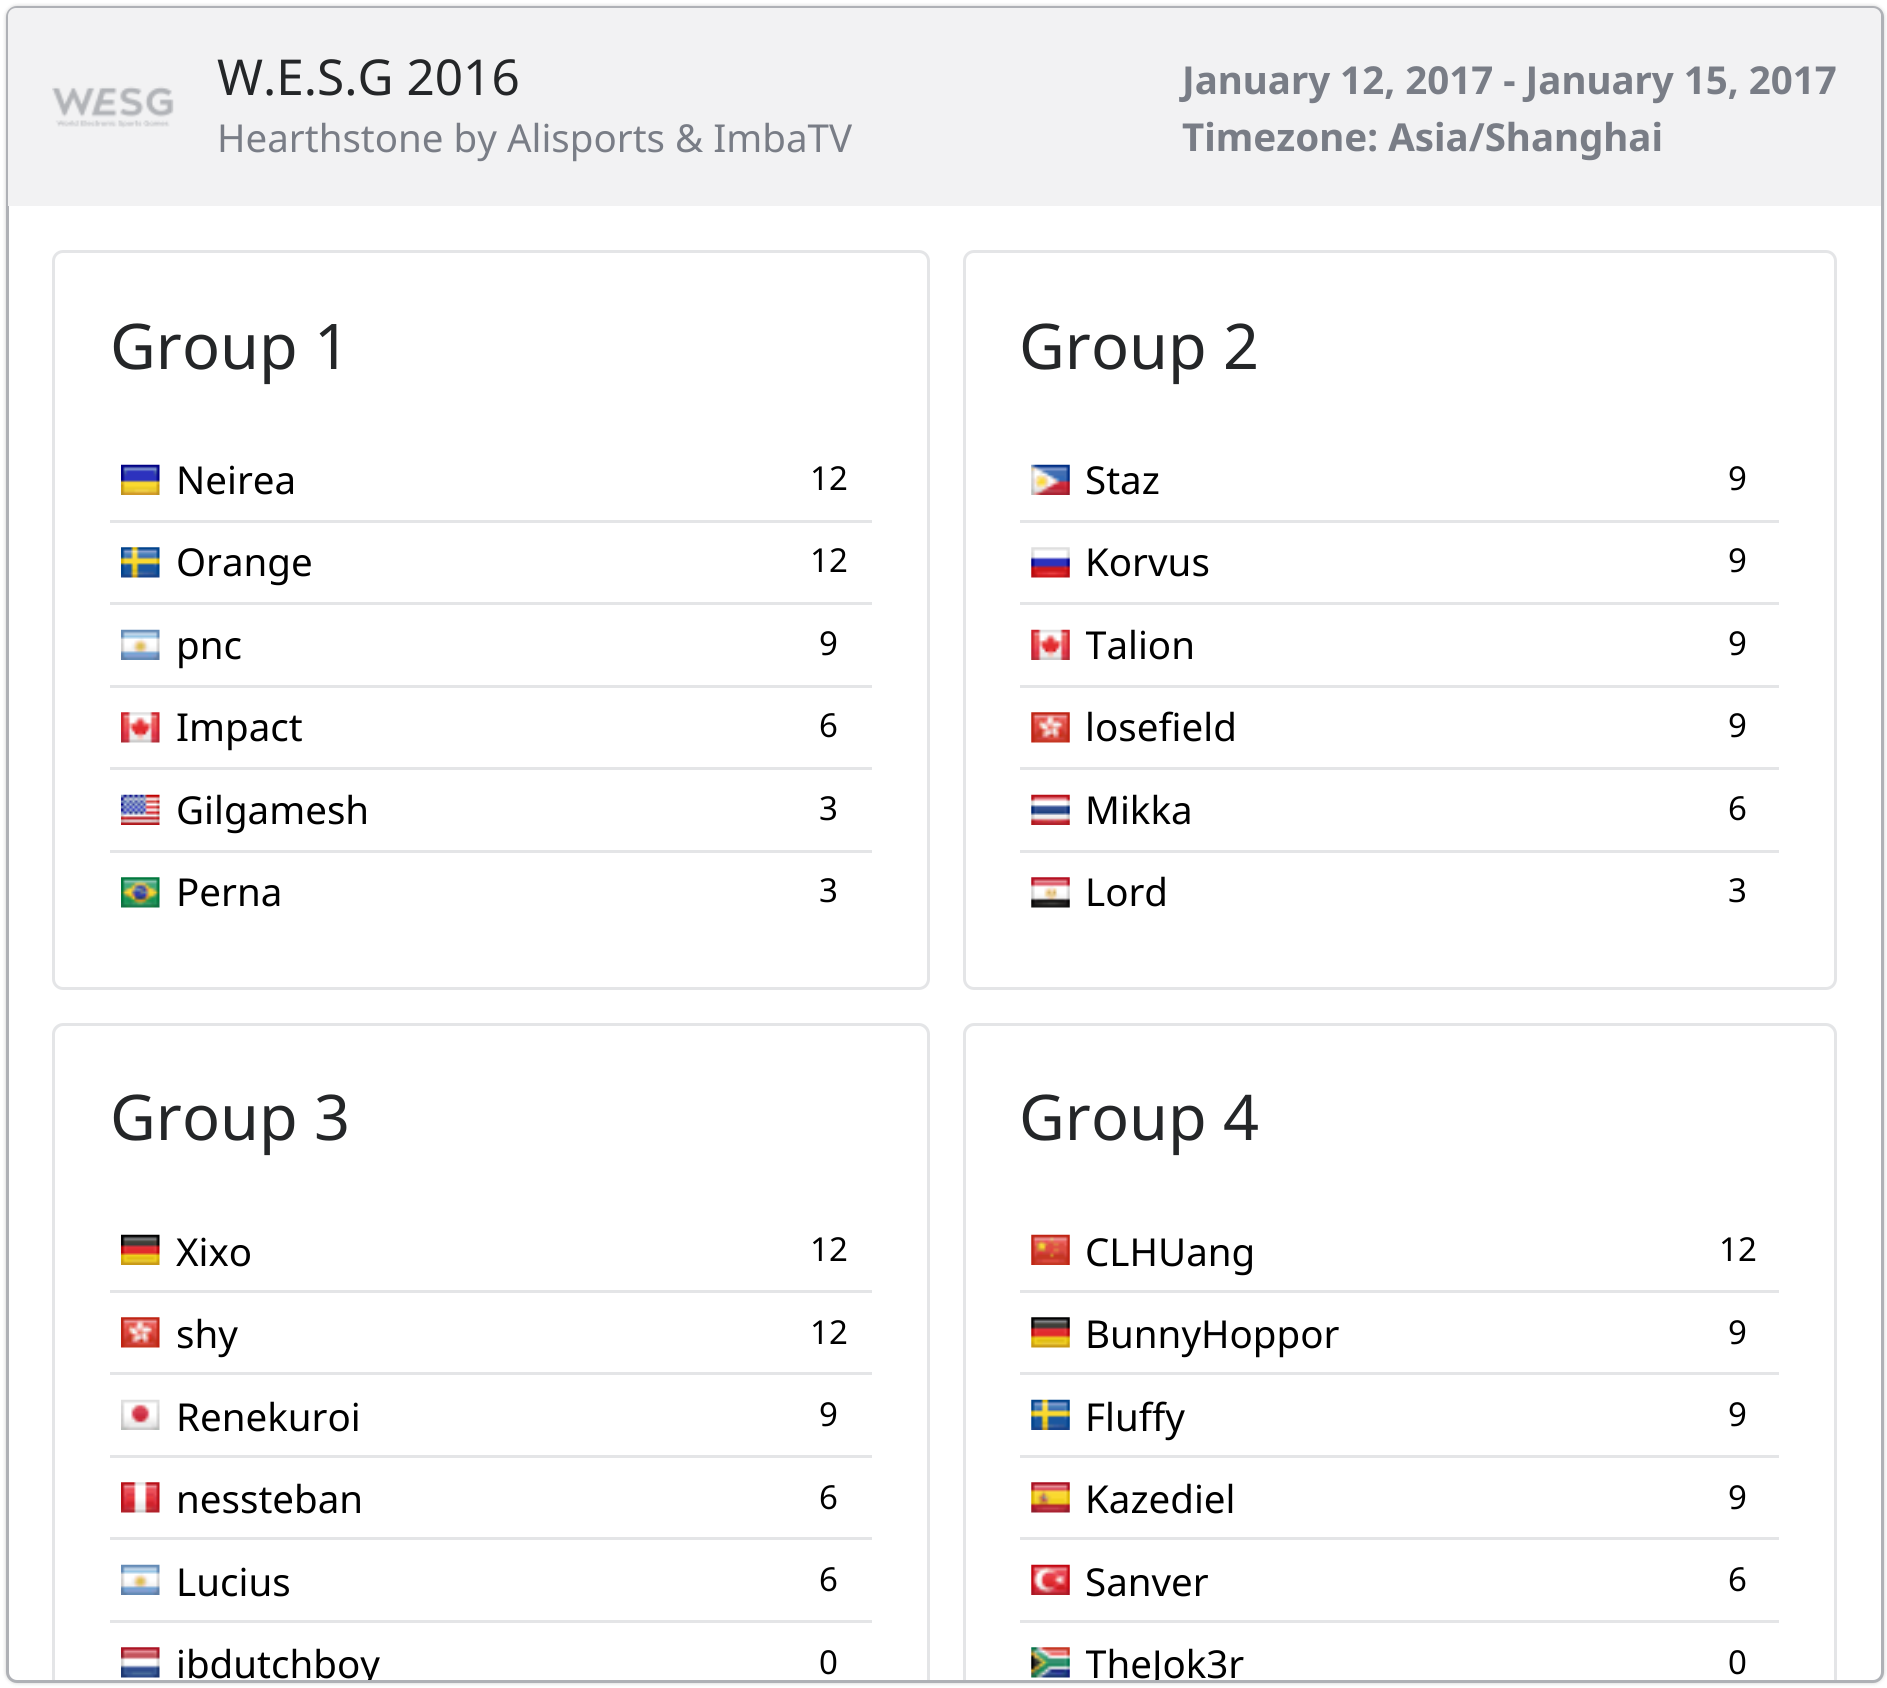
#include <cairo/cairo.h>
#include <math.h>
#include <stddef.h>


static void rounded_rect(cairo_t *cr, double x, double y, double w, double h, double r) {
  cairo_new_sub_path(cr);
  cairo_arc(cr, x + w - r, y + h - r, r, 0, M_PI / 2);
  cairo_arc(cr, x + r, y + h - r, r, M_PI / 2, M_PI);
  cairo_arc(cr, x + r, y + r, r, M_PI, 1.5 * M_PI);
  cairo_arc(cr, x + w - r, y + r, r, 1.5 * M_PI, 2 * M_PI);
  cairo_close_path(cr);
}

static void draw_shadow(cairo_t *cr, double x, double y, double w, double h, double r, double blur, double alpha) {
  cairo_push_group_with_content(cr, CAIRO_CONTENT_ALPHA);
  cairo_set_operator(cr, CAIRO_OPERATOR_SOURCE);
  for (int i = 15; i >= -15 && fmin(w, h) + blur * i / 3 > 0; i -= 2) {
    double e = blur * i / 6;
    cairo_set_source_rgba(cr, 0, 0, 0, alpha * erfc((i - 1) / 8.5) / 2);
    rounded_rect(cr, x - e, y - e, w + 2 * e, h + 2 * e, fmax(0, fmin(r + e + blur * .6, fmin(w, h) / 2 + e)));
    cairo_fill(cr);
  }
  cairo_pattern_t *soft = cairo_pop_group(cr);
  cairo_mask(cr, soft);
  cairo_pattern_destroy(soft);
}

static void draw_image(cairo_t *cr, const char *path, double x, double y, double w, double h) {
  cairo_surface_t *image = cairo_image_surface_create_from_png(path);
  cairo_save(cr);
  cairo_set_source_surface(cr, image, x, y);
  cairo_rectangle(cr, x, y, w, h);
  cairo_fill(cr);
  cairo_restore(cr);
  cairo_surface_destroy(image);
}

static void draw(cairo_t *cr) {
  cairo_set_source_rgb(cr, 1, 1, 1);
  cairo_paint(cr);
  cairo_set_source_rgb(cr, 0, 0, 0);
  draw_shadow(cr, 6, 6, 1878, 1677, 11, 2, 0.2);
  cairo_set_source_rgb(cr, 1, 1, 1);
  rounded_rect(cr, 7.5, 7.5, 1875, 1674, 9.5);
  cairo_fill_preserve(cr);
  cairo_set_source_rgb(cr, 175 / 255.0, 177 / 255.0, 182 / 255.0);
  cairo_set_line_width(cr, 3);
  cairo_stroke(cr);
  cairo_set_source_rgb(cr, 242 / 255.0, 242 / 255.0, 243 / 255.0);
  cairo_new_path(cr);
  cairo_move_to(cr, 16, 8);
  cairo_line_to(cr, 1873, 8);
  cairo_curve_to(cr, 1877.5, 8, 1881, 11.5, 1881, 16);
  cairo_line_to(cr, 1881, 206);
  cairo_line_to(cr, 8, 206);
  cairo_line_to(cr, 8, 16);
  cairo_curve_to(cr, 8, 11.5, 11.5, 8, 16, 8);
  cairo_close_path(cr);
  cairo_fill(cr);
  draw_image(cr, "images/1.png", 52, 86, 122, 42);
  rounded_rect(cr, 53.5, 251.5, 875, 737, 9.5);
  cairo_set_source_rgb(cr, 228 / 255.0, 229 / 255.0, 231 / 255.0);
  cairo_stroke(cr);
  cairo_rectangle(cr, 110, 520, 762, 3);
  cairo_fill(cr);
  draw_image(cr, "images/2.png", 121, 464, 39, 31);
  cairo_rectangle(cr, 110, 602, 762, 3);
  cairo_fill(cr);
  draw_image(cr, "images/3.png", 121, 547, 39, 31);
  cairo_rectangle(cr, 110, 685, 762, 3);
  cairo_fill(cr);
  draw_image(cr, "images/4.png", 121, 629, 39, 31);
  cairo_rectangle(cr, 110, 767, 762, 3);
  cairo_fill(cr);
  draw_image(cr, "images/5.png", 121, 712, 39, 31);
  cairo_rectangle(cr, 110, 850, 762, 3);
  cairo_fill(cr);
  draw_image(cr, "images/6.png", 121, 794, 39, 31);
  draw_image(cr, "images/7.png", 121, 877, 39, 31);
  rounded_rect(cr, 964.5, 251.5, 871, 737, 9.5);
  cairo_stroke(cr);
  cairo_rectangle(cr, 1020, 520, 759, 3);
  cairo_fill(cr);
  draw_image(cr, "images/8.png", 1031, 464, 39, 31);
  cairo_rectangle(cr, 1020, 602, 759, 3);
  cairo_fill(cr);
  draw_image(cr, "images/9.png", 1031, 547, 39, 31);
  cairo_rectangle(cr, 1020, 685, 759, 3);
  cairo_fill(cr);
  draw_image(cr, "images/10.png", 1031, 629, 39, 31);
  cairo_rectangle(cr, 1020, 767, 759, 3);
  cairo_fill(cr);
  draw_image(cr, "images/11.png", 1031, 712, 39, 31);
  cairo_rectangle(cr, 1020, 850, 759, 3);
  cairo_fill(cr);
  draw_image(cr, "images/12.png", 1031, 794, 39, 31);
  draw_image(cr, "images/13.png", 1031, 877, 39, 31);
  cairo_new_path(cr);
  cairo_move_to(cr, 63, 1023);
  cairo_curve_to(cr, 57, 1023, 52, 1028, 52, 1034);
  cairo_line_to(cr, 52, 1680);
  cairo_line_to(cr, 55, 1680);
  cairo_line_to(cr, 55, 1034);
  cairo_curve_to(cr, 55, 1030, 59, 1026, 63, 1026);
  cairo_line_to(cr, 919, 1026);
  cairo_curve_to(cr, 923, 1026, 927, 1030, 927, 1034);
  cairo_line_to(cr, 927, 1680);
  cairo_line_to(cr, 930, 1680);
  cairo_line_to(cr, 930, 1034);
  cairo_curve_to(cr, 930, 1028, 925, 1023, 919, 1023);
  cairo_close_path(cr);
  cairo_fill(cr);
  cairo_rectangle(cr, 110, 1290, 762, 3);
  cairo_fill(cr);
  draw_image(cr, "images/14.png", 121, 1234, 39, 31);
  cairo_rectangle(cr, 110, 1372, 762, 3);
  cairo_fill(cr);
  draw_image(cr, "images/15.png", 121, 1317, 39, 31);
  cairo_rectangle(cr, 110, 1455, 762, 3);
  cairo_fill(cr);
  draw_image(cr, "images/16.png", 121, 1399, 39, 31);
  cairo_rectangle(cr, 110, 1537, 762, 3);
  cairo_fill(cr);
  draw_image(cr, "images/17.png", 121, 1482, 39, 31);
  cairo_rectangle(cr, 110, 1620, 762, 3);
  cairo_fill(cr);
  draw_image(cr, "images/4.png", 121, 1564, 39, 31);
  draw_image(cr, "images/18.png", 121, 1647, 39, 31);
  cairo_new_path(cr);
  cairo_move_to(cr, 974, 1023);
  cairo_curve_to(cr, 968, 1023, 963, 1028, 963, 1034);
  cairo_line_to(cr, 963, 1680);
  cairo_line_to(cr, 966, 1680);
  cairo_line_to(cr, 966, 1034);
  cairo_curve_to(cr, 966, 1030, 970, 1026, 974, 1026);
  cairo_line_to(cr, 1826, 1026);
  cairo_curve_to(cr, 1830, 1026, 1834, 1030, 1834, 1034);
  cairo_line_to(cr, 1834, 1680);
  cairo_line_to(cr, 1837, 1680);
  cairo_line_to(cr, 1837, 1034);
  cairo_curve_to(cr, 1837, 1028, 1832, 1023, 1826, 1023);
  cairo_close_path(cr);
  cairo_fill(cr);
  cairo_rectangle(cr, 1020, 1290, 759, 3);
  cairo_fill(cr);
  draw_image(cr, "images/19.png", 1031, 1234, 39, 31);
  cairo_rectangle(cr, 1020, 1372, 759, 3);
  cairo_fill(cr);
  draw_image(cr, "images/20.png", 1031, 1317, 39, 31);
  cairo_rectangle(cr, 1020, 1455, 759, 3);
  cairo_fill(cr);
  draw_image(cr, "images/21.png", 1031, 1399, 39, 31);
  cairo_rectangle(cr, 1020, 1537, 759, 3);
  cairo_fill(cr);
  draw_image(cr, "images/22.png", 1031, 1482, 39, 31);
  cairo_rectangle(cr, 1020, 1620, 759, 3);
  cairo_fill(cr);
  draw_image(cr, "images/23.png", 1031, 1564, 39, 31);
  draw_image(cr, "images/24.png", 1031, 1647, 39, 31);
  cairo_select_font_face(cr, "Noto Sans", CAIRO_FONT_SLANT_NORMAL, CAIRO_FONT_WEIGHT_NORMAL);
  cairo_set_font_size(cr, 49.5);
  cairo_set_source_rgb(cr, 36 / 255.0, 38 / 255.0, 40 / 255.0);
  cairo_move_to(cr, 217, 95);
  cairo_show_text(cr, "W.E.S.G 2016");
  cairo_set_font_size(cr, 38.5);
  cairo_set_source_rgb(cr, 121 / 255.0, 125 / 255.0, 134 / 255.0);
  cairo_move_to(cr, 217, 152);
  cairo_show_text(cr, "Hearthstone by Alisports & ImbaTV");
  cairo_select_font_face(cr, "Noto Sans", CAIRO_FONT_SLANT_NORMAL, CAIRO_FONT_WEIGHT_BOLD);
  cairo_move_to(cr, 1182, 94);
  cairo_show_text(cr, "January 12, 2017 - January 15, 2017");
  cairo_move_to(cr, 1182, 151);
  cairo_show_text(cr, "Timezone: Asia/Shanghai");
  cairo_select_font_face(cr, "Noto Sans", CAIRO_FONT_SLANT_NORMAL, CAIRO_FONT_WEIGHT_NORMAL);
  cairo_set_font_size(cr, 63);
  cairo_set_source_rgb(cr, 36 / 255.0, 38 / 255.0, 40 / 255.0);
  cairo_move_to(cr, 110, 369);
  cairo_show_text(cr, "Group 1");
  cairo_set_font_size(cr, 38.5);
  cairo_set_source_rgb(cr, 0, 0, 0);
  cairo_move_to(cr, 176, 494);
  cairo_show_text(cr, "Neirea");
  cairo_set_font_size(cr, 33);
  cairo_move_to(cr, 810, 490);
  cairo_show_text(cr, "12");
  cairo_set_font_size(cr, 38.5);
  cairo_move_to(cr, 176, 576);
  cairo_show_text(cr, "Orange");
  cairo_set_font_size(cr, 33);
  cairo_move_to(cr, 810, 572);
  cairo_show_text(cr, "12");
  cairo_set_font_size(cr, 38.5);
  cairo_move_to(cr, 176, 659);
  cairo_show_text(cr, "pnc");
  cairo_set_font_size(cr, 33);
  cairo_move_to(cr, 819, 655);
  cairo_show_text(cr, "9");
  cairo_set_font_size(cr, 38.5);
  cairo_move_to(cr, 176, 741);
  cairo_show_text(cr, "Impact");
  cairo_set_font_size(cr, 33);
  cairo_move_to(cr, 819, 737);
  cairo_show_text(cr, "6");
  cairo_set_font_size(cr, 38.5);
  cairo_move_to(cr, 176, 824);
  cairo_show_text(cr, "Gilgamesh");
  cairo_set_font_size(cr, 33);
  cairo_move_to(cr, 819, 820);
  cairo_show_text(cr, "3");
  cairo_set_font_size(cr, 38.5);
  cairo_move_to(cr, 176, 906);
  cairo_show_text(cr, "Perna");
  cairo_set_font_size(cr, 33);
  cairo_move_to(cr, 819, 902);
  cairo_show_text(cr, "3");
  cairo_set_font_size(cr, 63);
  cairo_set_source_rgb(cr, 36 / 255.0, 38 / 255.0, 40 / 255.0);
  cairo_move_to(cr, 1019, 369);
  cairo_show_text(cr, "Group 2");
  cairo_set_font_size(cr, 38.5);
  cairo_set_source_rgb(cr, 0, 0, 0);
  cairo_move_to(cr, 1085, 494);
  cairo_show_text(cr, "Staz");
  cairo_set_font_size(cr, 33);
  cairo_move_to(cr, 1728, 490);
  cairo_show_text(cr, "9");
  cairo_set_font_size(cr, 38.5);
  cairo_move_to(cr, 1085, 576);
  cairo_show_text(cr, "Korvus");
  cairo_set_font_size(cr, 33);
  cairo_move_to(cr, 1728, 572);
  cairo_show_text(cr, "9");
  cairo_save(cr);
  cairo_rectangle(cr, 1086, 616, 611, 58);
  cairo_clip(cr);
  cairo_set_font_size(cr, 38.5);
  cairo_move_to(cr, 1085, 659);
  cairo_show_text(cr, "Talion");
  cairo_restore(cr);
  cairo_move_to(cr, 1728, 655);
  cairo_show_text(cr, "9");
  cairo_set_font_size(cr, 38.5);
  cairo_move_to(cr, 1085, 741);
  cairo_show_text(cr, "losefield");
  cairo_set_font_size(cr, 33);
  cairo_move_to(cr, 1728, 737);
  cairo_show_text(cr, "9");
  cairo_set_font_size(cr, 38.5);
  cairo_move_to(cr, 1085, 824);
  cairo_show_text(cr, "Mikka");
  cairo_set_font_size(cr, 33);
  cairo_move_to(cr, 1728, 820);
  cairo_show_text(cr, "6");
  cairo_set_font_size(cr, 38.5);
  cairo_move_to(cr, 1085, 906);
  cairo_show_text(cr, "Lord");
  cairo_set_font_size(cr, 33);
  cairo_move_to(cr, 1728, 902);
  cairo_show_text(cr, "3");
  cairo_set_font_size(cr, 63);
  cairo_set_source_rgb(cr, 36 / 255.0, 38 / 255.0, 40 / 255.0);
  cairo_move_to(cr, 110, 1140);
  cairo_show_text(cr, "Group 3");
  cairo_set_font_size(cr, 38.5);
  cairo_set_source_rgb(cr, 0, 0, 0);
  cairo_move_to(cr, 176, 1266);
  cairo_show_text(cr, "Xixo");
  cairo_set_font_size(cr, 33);
  cairo_move_to(cr, 810, 1261);
  cairo_show_text(cr, "12");
  cairo_set_font_size(cr, 38.5);
  cairo_move_to(cr, 176, 1348);
  cairo_show_text(cr, "shy");
  cairo_set_font_size(cr, 33);
  cairo_move_to(cr, 810, 1344);
  cairo_show_text(cr, "12");
  cairo_set_font_size(cr, 38.5);
  cairo_move_to(cr, 176, 1431);
  cairo_show_text(cr, "Renekuroi");
  cairo_set_font_size(cr, 33);
  cairo_move_to(cr, 819, 1426);
  cairo_show_text(cr, "9");
  cairo_set_font_size(cr, 38.5);
  cairo_move_to(cr, 176, 1513);
  cairo_show_text(cr, "nessteban");
  cairo_set_font_size(cr, 33);
  cairo_move_to(cr, 819, 1509);
  cairo_show_text(cr, "6");
  cairo_set_font_size(cr, 38.5);
  cairo_move_to(cr, 176, 1596);
  cairo_show_text(cr, "Lucius");
  cairo_set_font_size(cr, 33);
  cairo_move_to(cr, 819, 1591);
  cairo_show_text(cr, "6");
  cairo_save(cr);
  rounded_rect(cr, 8, 8, 1873, 1672, 8);
  cairo_clip(cr);
  cairo_set_font_size(cr, 38.5);
  cairo_move_to(cr, 176, 1678);
  cairo_show_text(cr, "ibdutchboy");
  cairo_restore(cr);
  cairo_move_to(cr, 819, 1674);
  cairo_show_text(cr, "0");
  cairo_set_font_size(cr, 63);
  cairo_set_source_rgb(cr, 36 / 255.0, 38 / 255.0, 40 / 255.0);
  cairo_move_to(cr, 1019, 1140);
  cairo_show_text(cr, "Group 4");
  cairo_set_font_size(cr, 38.5);
  cairo_set_source_rgb(cr, 0, 0, 0);
  cairo_move_to(cr, 1085, 1266);
  cairo_show_text(cr, "CLHUang");
  cairo_set_font_size(cr, 33);
  cairo_move_to(cr, 1719, 1261);
  cairo_show_text(cr, "12");
  cairo_set_font_size(cr, 38.5);
  cairo_move_to(cr, 1085, 1348);
  cairo_show_text(cr, "BunnyHoppor");
  cairo_set_font_size(cr, 33);
  cairo_move_to(cr, 1728, 1344);
  cairo_show_text(cr, "9");
  cairo_set_font_size(cr, 38.5);
  cairo_move_to(cr, 1085, 1431);
  cairo_show_text(cr, "Fluffy");
  cairo_set_font_size(cr, 33);
  cairo_move_to(cr, 1728, 1426);
  cairo_show_text(cr, "9");
  cairo_set_font_size(cr, 38.5);
  cairo_move_to(cr, 1085, 1513);
  cairo_show_text(cr, "Kazediel");
  cairo_set_font_size(cr, 33);
  cairo_move_to(cr, 1728, 1509);
  cairo_show_text(cr, "9");
  cairo_set_font_size(cr, 38.5);
  cairo_move_to(cr, 1085, 1596);
  cairo_show_text(cr, "Sanver");
  cairo_set_font_size(cr, 33);
  cairo_move_to(cr, 1728, 1591);
  cairo_show_text(cr, "6");
  cairo_save(cr);
  cairo_rectangle(cr, 1086, 1634, 611, 46);
  cairo_clip(cr);
  cairo_set_font_size(cr, 38.5);
  cairo_move_to(cr, 1085, 1678);
  cairo_show_text(cr, "TheJok3r");
  cairo_restore(cr);
  cairo_move_to(cr, 1728, 1674);
  cairo_show_text(cr, "0");
}

int main(void) {
  cairo_surface_t *surface = cairo_image_surface_create(CAIRO_FORMAT_RGB24, 1887, 1688);
  cairo_t *cr = cairo_create(surface);
  cairo_font_options_t *options = cairo_font_options_create();
  cairo_font_options_set_hint_metrics(options, CAIRO_HINT_METRICS_OFF);
  cairo_font_options_set_hint_style(options, CAIRO_HINT_STYLE_NONE);
  cairo_set_font_options(cr, options);
  cairo_set_miter_limit(cr, 4);
  draw(cr);
  cairo_surface_write_to_png(surface, "out.png");
  cairo_font_options_destroy(options);
  cairo_destroy(cr);
  cairo_surface_destroy(surface);
  return 0;
}
